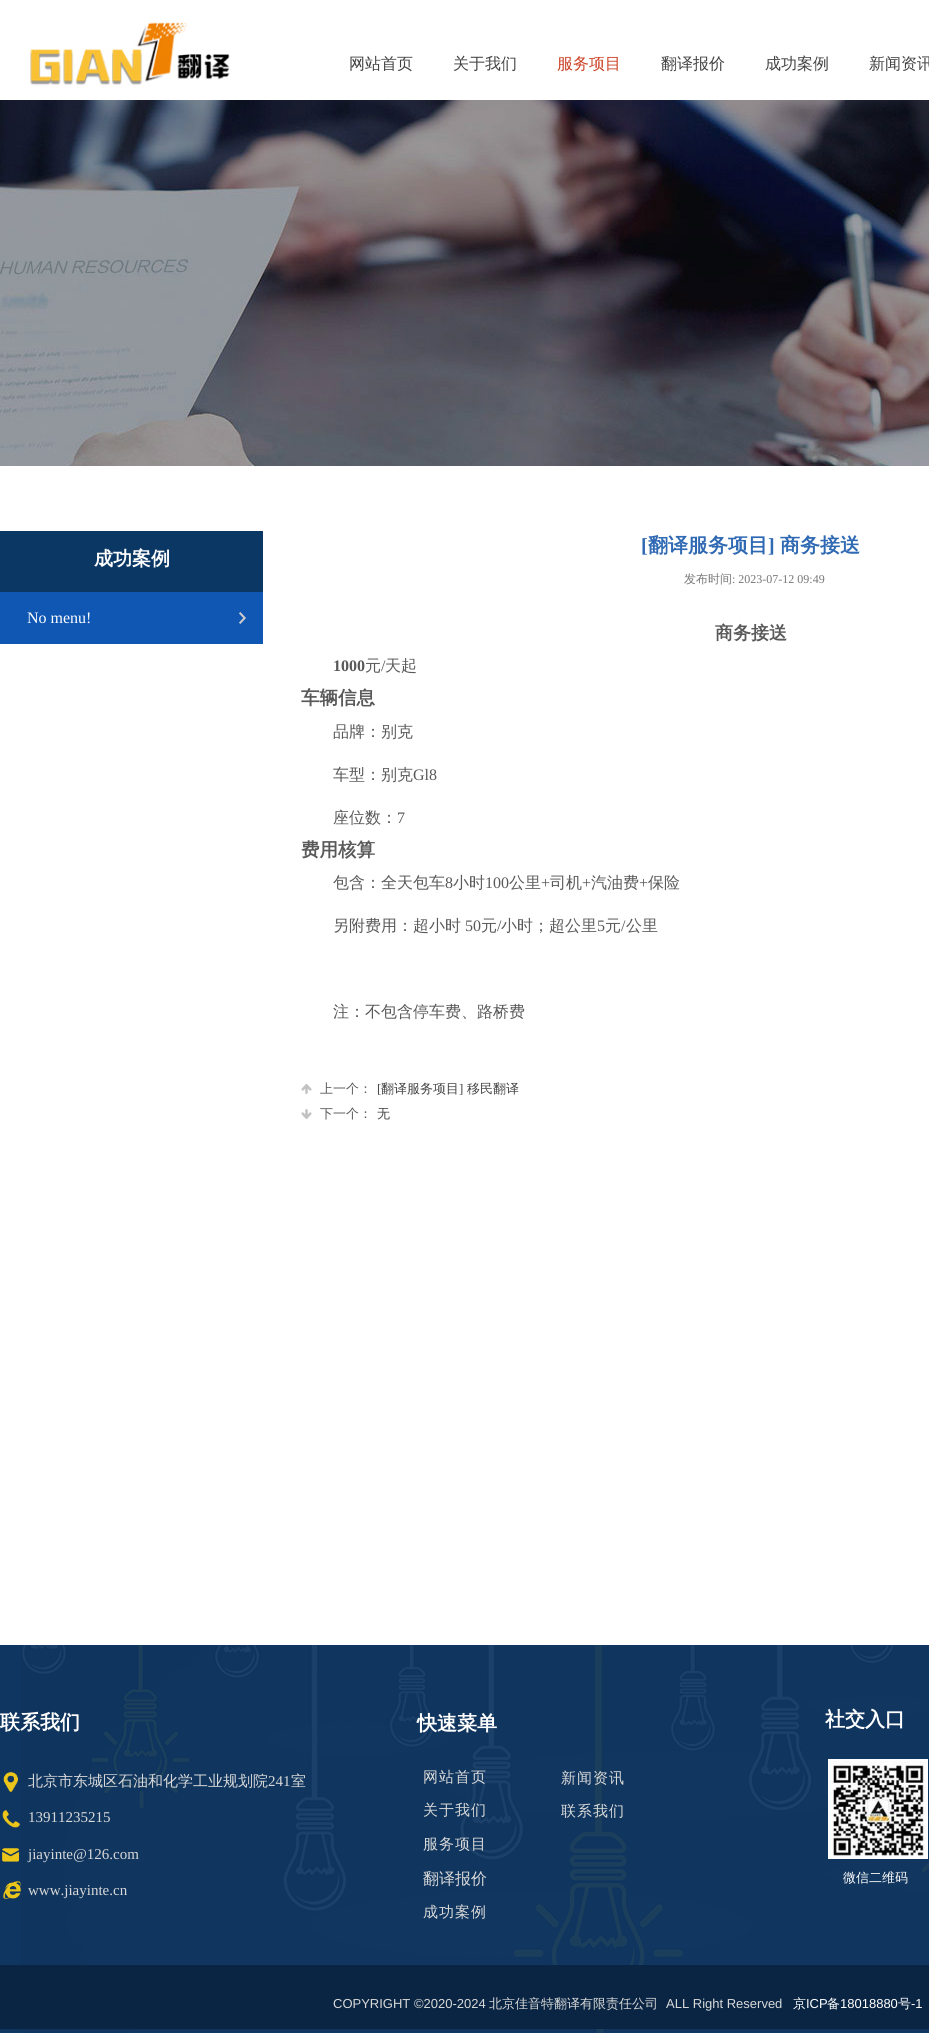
#include <cairo/cairo.h>
#include <math.h>
#include <stddef.h>


static void draw_spaced(cairo_t *cr, double x, double y, const char *s, double letter, double word) {
  cairo_move_to(cr, x, y);
  while (*s) {
    char ch[5] = {0};
    int n = 0;
    do ch[n++] = *s++; while ((*s & 0xC0) == 0x80);
    cairo_show_text(cr, ch);
    cairo_rel_move_to(cr, letter + word * (*ch == ' '), 0);
  }
}

static void draw_image(cairo_t *cr, const char *path, double x, double y, double w, double h) {
  cairo_surface_t *image = cairo_image_surface_create_from_png(path);
  cairo_save(cr);
  cairo_set_source_surface(cr, image, x, y);
  cairo_rectangle(cr, x, y, w, h);
  cairo_fill(cr);
  cairo_restore(cr);
  cairo_surface_destroy(image);
}

static void draw(cairo_t *cr) {
  cairo_set_source_rgb(cr, 1, 1, 1);
  cairo_paint(cr);
  draw_image(cr, "images/1.png", 30, 22, 200, 64);
  draw_image(cr, "images/2.png", 0, 100, 929, 366);
  cairo_set_source_rgb(cr, 11 / 255.0, 55 / 255.0, 100 / 255.0);
  cairo_rectangle(cr, 0, 531, 263, 61);
  cairo_fill(cr);
  cairo_set_source_rgb(cr, 194 / 255.0, 194 / 255.0, 194 / 255.0);
  cairo_rectangle(cr, 301, 1084, 11, 10);
  cairo_fill(cr);
  draw_image(cr, "images/3.png", 301, 1084, 11, 10);
  cairo_rectangle(cr, 301, 1109, 11, 10);
  cairo_fill(cr);
  draw_image(cr, "images/4.png", 301, 1109, 11, 10);
  cairo_set_source_rgb(cr, 15 / 255.0, 87 / 255.0, 179 / 255.0);
  cairo_rectangle(cr, 0, 592, 263, 52);
  cairo_fill(cr);
  draw_image(cr, "images/5.png", 239, 612, 7, 12);
  cairo_set_source_rgb(cr, 15 / 255.0, 54 / 255.0, 97 / 255.0);
  cairo_rectangle(cr, 0, 1645, 929, 388);
  cairo_fill(cr);
  draw_image(cr, "images/6.png", 21, 1645, 908, 388);
  draw_image(cr, "images/7.png", 3, 1772, 15, 20);
  draw_image(cr, "images/8.png", 828, 1759, 100, 100);
  draw_image(cr, "images/9.png", 2, 1810, 18, 18);
  draw_image(cr, "images/10.png", 2, 1848, 17, 14);
  draw_image(cr, "images/11.png", 3, 1881, 18, 18);
  cairo_set_source_rgb(cr, 10 / 255.0, 37 / 255.0, 67 / 255.0);
  cairo_rectangle(cr, 0, 1965, 929, 64);
  cairo_fill(cr);
  cairo_select_font_face(cr, "WenQuanYi Zen Hei Medium", CAIRO_FONT_SLANT_NORMAL, CAIRO_FONT_WEIGHT_NORMAL);
  cairo_set_font_size(cr, 16);
  cairo_set_source_rgb(cr, 67 / 255.0, 67 / 255.0, 67 / 255.0);
  cairo_move_to(cr, 349, 69);
  cairo_show_text(cr, "网站首页");
  cairo_move_to(cr, 453, 69);
  cairo_show_text(cr, "关于我们");
  cairo_set_source_rgb(cr, 204 / 255.0, 65 / 255.0, 37 / 255.0);
  cairo_move_to(cr, 557, 69);
  cairo_show_text(cr, "服务项目");
  cairo_set_source_rgb(cr, 67 / 255.0, 67 / 255.0, 67 / 255.0);
  cairo_move_to(cr, 661, 69);
  cairo_show_text(cr, "翻译报价");
  cairo_move_to(cr, 765, 69);
  cairo_show_text(cr, "成功案例");
  cairo_move_to(cr, 869, 69);
  cairo_show_text(cr, "新闻资讯");
  cairo_select_font_face(cr, "WenQuanYi Zen Hei", CAIRO_FONT_SLANT_NORMAL, CAIRO_FONT_WEIGHT_BOLD);
  cairo_set_font_size(cr, 19);
  cairo_set_source_rgb(cr, 1, 1, 1);
  cairo_move_to(cr, 94, 565);
  cairo_show_text(cr, "成功案例");
  cairo_select_font_face(cr, "Liberation Serif", CAIRO_FONT_SLANT_NORMAL, CAIRO_FONT_WEIGHT_BOLD);
  cairo_set_font_size(cr, 20);
  cairo_set_source_rgb(cr, 47 / 255.0, 105 / 255.0, 179 / 255.0);
  cairo_move_to(cr, 641, 552);
  cairo_show_text(cr, "[");
  cairo_select_font_face(cr, "WenQuanYi Zen Hei", CAIRO_FONT_SLANT_NORMAL, CAIRO_FONT_WEIGHT_BOLD);
  cairo_move_to(cr, 648, 552);
  cairo_show_text(cr, "翻译服务项目");
  cairo_select_font_face(cr, "Liberation Serif", CAIRO_FONT_SLANT_NORMAL, CAIRO_FONT_WEIGHT_BOLD);
  cairo_move_to(cr, 768, 552);
  cairo_show_text(cr, "]");
  cairo_select_font_face(cr, "WenQuanYi Zen Hei", CAIRO_FONT_SLANT_NORMAL, CAIRO_FONT_WEIGHT_BOLD);
  cairo_move_to(cr, 780, 552);
  cairo_show_text(cr, "商务接送");
  cairo_select_font_face(cr, "WenQuanYi Zen Hei Medium", CAIRO_FONT_SLANT_NORMAL, CAIRO_FONT_WEIGHT_NORMAL);
  cairo_set_font_size(cr, 12);
  cairo_set_source_rgb(cr, 119 / 255.0, 119 / 255.0, 119 / 255.0);
  cairo_move_to(cr, 684, 583);
  cairo_show_text(cr, "发布时间");
  cairo_select_font_face(cr, "Liberation Serif", CAIRO_FONT_SLANT_NORMAL, CAIRO_FONT_WEIGHT_NORMAL);
  cairo_move_to(cr, 732, 583);
  cairo_show_text(cr, ": 2023-07-12 09:49");
  cairo_select_font_face(cr, "WenQuanYi Zen Hei", CAIRO_FONT_SLANT_NORMAL, CAIRO_FONT_WEIGHT_BOLD);
  cairo_set_font_size(cr, 18);
  cairo_set_source_rgb(cr, 89 / 255.0, 89 / 255.0, 89 / 255.0);
  cairo_move_to(cr, 715, 639);
  cairo_show_text(cr, "商务接送");
  cairo_select_font_face(cr, "Liberation Serif", CAIRO_FONT_SLANT_NORMAL, CAIRO_FONT_WEIGHT_BOLD);
  cairo_set_font_size(cr, 16);
  cairo_move_to(cr, 333, 671);
  cairo_show_text(cr, "1000");
  cairo_select_font_face(cr, "WenQuanYi Zen Hei Medium", CAIRO_FONT_SLANT_NORMAL, CAIRO_FONT_WEIGHT_NORMAL);
  cairo_move_to(cr, 365, 671);
  cairo_show_text(cr, "元");
  cairo_select_font_face(cr, "Liberation Serif", CAIRO_FONT_SLANT_NORMAL, CAIRO_FONT_WEIGHT_NORMAL);
  cairo_move_to(cr, 381, 671);
  cairo_show_text(cr, "/");
  cairo_select_font_face(cr, "WenQuanYi Zen Hei Medium", CAIRO_FONT_SLANT_NORMAL, CAIRO_FONT_WEIGHT_NORMAL);
  cairo_move_to(cr, 385, 671);
  cairo_show_text(cr, "天起");
  cairo_select_font_face(cr, "WenQuanYi Zen Hei", CAIRO_FONT_SLANT_NORMAL, CAIRO_FONT_WEIGHT_BOLD);
  cairo_set_font_size(cr, 18.5);
  cairo_move_to(cr, 301, 704);
  cairo_show_text(cr, "车辆信息");
  cairo_select_font_face(cr, "WenQuanYi Zen Hei Medium", CAIRO_FONT_SLANT_NORMAL, CAIRO_FONT_WEIGHT_NORMAL);
  cairo_set_font_size(cr, 16);
  cairo_move_to(cr, 333, 737);
  cairo_show_text(cr, "品牌：别克");
  cairo_move_to(cr, 333, 780);
  cairo_show_text(cr, "车型：别克");
  cairo_select_font_face(cr, "Liberation Serif", CAIRO_FONT_SLANT_NORMAL, CAIRO_FONT_WEIGHT_NORMAL);
  cairo_move_to(cr, 413, 780);
  cairo_show_text(cr, "Gl8");
  cairo_select_font_face(cr, "WenQuanYi Zen Hei Medium", CAIRO_FONT_SLANT_NORMAL, CAIRO_FONT_WEIGHT_NORMAL);
  cairo_move_to(cr, 333, 823);
  cairo_show_text(cr, "座位数：");
  cairo_select_font_face(cr, "Liberation Serif", CAIRO_FONT_SLANT_NORMAL, CAIRO_FONT_WEIGHT_NORMAL);
  cairo_move_to(cr, 397, 823);
  cairo_show_text(cr, "7");
  cairo_select_font_face(cr, "WenQuanYi Zen Hei", CAIRO_FONT_SLANT_NORMAL, CAIRO_FONT_WEIGHT_BOLD);
  cairo_set_font_size(cr, 18.5);
  cairo_move_to(cr, 301, 856);
  cairo_show_text(cr, "费用核算");
  cairo_select_font_face(cr, "WenQuanYi Zen Hei Medium", CAIRO_FONT_SLANT_NORMAL, CAIRO_FONT_WEIGHT_NORMAL);
  cairo_set_font_size(cr, 16);
  cairo_move_to(cr, 333, 888);
  cairo_show_text(cr, "包含：全天包车");
  cairo_select_font_face(cr, "Liberation Serif", CAIRO_FONT_SLANT_NORMAL, CAIRO_FONT_WEIGHT_NORMAL);
  cairo_move_to(cr, 445, 888);
  cairo_show_text(cr, "8");
  cairo_select_font_face(cr, "WenQuanYi Zen Hei Medium", CAIRO_FONT_SLANT_NORMAL, CAIRO_FONT_WEIGHT_NORMAL);
  cairo_move_to(cr, 453, 888);
  cairo_show_text(cr, "小时");
  cairo_select_font_face(cr, "Liberation Serif", CAIRO_FONT_SLANT_NORMAL, CAIRO_FONT_WEIGHT_NORMAL);
  cairo_move_to(cr, 485, 888);
  cairo_show_text(cr, "100");
  cairo_select_font_face(cr, "WenQuanYi Zen Hei Medium", CAIRO_FONT_SLANT_NORMAL, CAIRO_FONT_WEIGHT_NORMAL);
  cairo_move_to(cr, 509, 888);
  cairo_show_text(cr, "公里");
  cairo_select_font_face(cr, "Liberation Serif", CAIRO_FONT_SLANT_NORMAL, CAIRO_FONT_WEIGHT_NORMAL);
  cairo_move_to(cr, 541, 888);
  cairo_show_text(cr, "+");
  cairo_select_font_face(cr, "WenQuanYi Zen Hei Medium", CAIRO_FONT_SLANT_NORMAL, CAIRO_FONT_WEIGHT_NORMAL);
  cairo_move_to(cr, 550, 888);
  cairo_show_text(cr, "司机");
  cairo_select_font_face(cr, "Liberation Serif", CAIRO_FONT_SLANT_NORMAL, CAIRO_FONT_WEIGHT_NORMAL);
  cairo_move_to(cr, 582, 888);
  cairo_show_text(cr, "+");
  cairo_select_font_face(cr, "WenQuanYi Zen Hei Medium", CAIRO_FONT_SLANT_NORMAL, CAIRO_FONT_WEIGHT_NORMAL);
  cairo_move_to(cr, 591, 888);
  cairo_show_text(cr, "汽油费");
  cairo_select_font_face(cr, "Liberation Serif", CAIRO_FONT_SLANT_NORMAL, CAIRO_FONT_WEIGHT_NORMAL);
  cairo_move_to(cr, 639, 888);
  cairo_show_text(cr, "+");
  cairo_select_font_face(cr, "WenQuanYi Zen Hei Medium", CAIRO_FONT_SLANT_NORMAL, CAIRO_FONT_WEIGHT_NORMAL);
  cairo_move_to(cr, 648, 888);
  cairo_show_text(cr, "保险");
  cairo_move_to(cr, 333, 931);
  cairo_show_text(cr, "另附费用：超小时");
  cairo_select_font_face(cr, "Liberation Serif", CAIRO_FONT_SLANT_NORMAL, CAIRO_FONT_WEIGHT_NORMAL);
  cairo_move_to(cr, 465, 931);
  cairo_show_text(cr, "50");
  cairo_select_font_face(cr, "WenQuanYi Zen Hei Medium", CAIRO_FONT_SLANT_NORMAL, CAIRO_FONT_WEIGHT_NORMAL);
  cairo_move_to(cr, 481, 931);
  cairo_show_text(cr, "元");
  cairo_select_font_face(cr, "Liberation Serif", CAIRO_FONT_SLANT_NORMAL, CAIRO_FONT_WEIGHT_NORMAL);
  cairo_move_to(cr, 497, 931);
  cairo_show_text(cr, "/");
  cairo_select_font_face(cr, "WenQuanYi Zen Hei Medium", CAIRO_FONT_SLANT_NORMAL, CAIRO_FONT_WEIGHT_NORMAL);
  cairo_move_to(cr, 501, 931);
  cairo_show_text(cr, "小时；超公里");
  cairo_select_font_face(cr, "Liberation Serif", CAIRO_FONT_SLANT_NORMAL, CAIRO_FONT_WEIGHT_NORMAL);
  cairo_move_to(cr, 597, 931);
  cairo_show_text(cr, "5");
  cairo_select_font_face(cr, "WenQuanYi Zen Hei Medium", CAIRO_FONT_SLANT_NORMAL, CAIRO_FONT_WEIGHT_NORMAL);
  cairo_move_to(cr, 605, 931);
  cairo_show_text(cr, "元");
  cairo_select_font_face(cr, "Liberation Serif", CAIRO_FONT_SLANT_NORMAL, CAIRO_FONT_WEIGHT_NORMAL);
  cairo_move_to(cr, 621, 931);
  cairo_show_text(cr, "/");
  cairo_select_font_face(cr, "WenQuanYi Zen Hei Medium", CAIRO_FONT_SLANT_NORMAL, CAIRO_FONT_WEIGHT_NORMAL);
  cairo_move_to(cr, 626, 931);
  cairo_show_text(cr, "公里");
  cairo_move_to(cr, 333, 1017);
  cairo_show_text(cr, "注：不包含停车费、路桥费");
  cairo_set_font_size(cr, 13);
  cairo_move_to(cr, 320, 1093);
  cairo_show_text(cr, "上一个：");
  cairo_select_font_face(cr, "Liberation Serif", CAIRO_FONT_SLANT_NORMAL, CAIRO_FONT_WEIGHT_NORMAL);
  cairo_set_source_rgb(cr, 67 / 255.0, 67 / 255.0, 67 / 255.0);
  cairo_move_to(cr, 377, 1093);
  cairo_show_text(cr, "[");
  cairo_select_font_face(cr, "WenQuanYi Zen Hei Medium", CAIRO_FONT_SLANT_NORMAL, CAIRO_FONT_WEIGHT_NORMAL);
  cairo_move_to(cr, 381, 1093);
  cairo_show_text(cr, "翻译服务项目");
  cairo_select_font_face(cr, "Liberation Serif", CAIRO_FONT_SLANT_NORMAL, CAIRO_FONT_WEIGHT_NORMAL);
  cairo_move_to(cr, 459, 1093);
  cairo_show_text(cr, "]");
  cairo_select_font_face(cr, "WenQuanYi Zen Hei Medium", CAIRO_FONT_SLANT_NORMAL, CAIRO_FONT_WEIGHT_NORMAL);
  cairo_move_to(cr, 467, 1093);
  cairo_show_text(cr, "移民翻译");
  cairo_set_source_rgb(cr, 89 / 255.0, 89 / 255.0, 89 / 255.0);
  cairo_move_to(cr, 320, 1118);
  cairo_show_text(cr, "下一个：");
  cairo_set_source_rgb(cr, 67 / 255.0, 67 / 255.0, 67 / 255.0);
  cairo_move_to(cr, 377, 1118);
  cairo_show_text(cr, "无");
  cairo_select_font_face(cr, "Liberation Serif", CAIRO_FONT_SLANT_NORMAL, CAIRO_FONT_WEIGHT_NORMAL);
  cairo_set_font_size(cr, 16);
  cairo_set_source_rgb(cr, 1, 1, 1);
  cairo_move_to(cr, 27, 623);
  cairo_show_text(cr, "No menu!");
  cairo_select_font_face(cr, "WenQuanYi Zen Hei", CAIRO_FONT_SLANT_NORMAL, CAIRO_FONT_WEIGHT_BOLD);
  cairo_set_font_size(cr, 20);
  cairo_move_to(cr, 0, 1729);
  cairo_show_text(cr, "联系我们");
  cairo_move_to(cr, 417, 1730);
  cairo_show_text(cr, "快速菜单");
  cairo_move_to(cr, 825, 1726);
  cairo_show_text(cr, "社交入口");
  cairo_select_font_face(cr, "WenQuanYi Zen Hei Medium", CAIRO_FONT_SLANT_NORMAL, CAIRO_FONT_WEIGHT_NORMAL);
  cairo_set_font_size(cr, 15);
  cairo_set_source_rgb(cr, 217 / 255.0, 217 / 255.0, 217 / 255.0);
  cairo_move_to(cr, 28, 1786);
  cairo_show_text(cr, "北京市东城区石油和化学工业规划院");
  cairo_select_font_face(cr, "Liberation Serif", CAIRO_FONT_SLANT_NORMAL, CAIRO_FONT_WEIGHT_NORMAL);
  cairo_move_to(cr, 268, 1786);
  cairo_show_text(cr, "241");
  cairo_select_font_face(cr, "WenQuanYi Zen Hei Medium", CAIRO_FONT_SLANT_NORMAL, CAIRO_FONT_WEIGHT_NORMAL);
  cairo_move_to(cr, 291, 1786);
  cairo_show_text(cr, "室");
  cairo_select_font_face(cr, "Liberation Serif", CAIRO_FONT_SLANT_NORMAL, CAIRO_FONT_WEIGHT_NORMAL);
  cairo_move_to(cr, 28, 1822);
  cairo_show_text(cr, "13911235215");
  cairo_move_to(cr, 28, 1859);
  cairo_show_text(cr, "jiayinte@126.com");
  cairo_move_to(cr, 28, 1895);
  cairo_show_text(cr, "www.jiayinte.cn");
  cairo_select_font_face(cr, "WenQuanYi Zen Hei Medium", CAIRO_FONT_SLANT_NORMAL, CAIRO_FONT_WEIGHT_NORMAL);
  draw_spaced(cr, 423, 1782, "网站首页", 1, 0);
  draw_spaced(cr, 423, 1815, "关于我们", 1, 0);
  draw_spaced(cr, 423, 1849, "服务项目", 1, 0);
  cairo_set_font_size(cr, 16);
  cairo_move_to(cr, 423, 1884);
  cairo_show_text(cr, "翻译报价");
  cairo_set_font_size(cr, 15);
  draw_spaced(cr, 423, 1917, "成功案例", 1, 0);
  draw_spaced(cr, 561, 1783, "新闻资讯", 1, 0);
  draw_spaced(cr, 561, 1816, "联系我们", 1, 0);
  cairo_set_font_size(cr, 13);
  cairo_set_source_rgb(cr, 1, 1, 1);
  cairo_move_to(cr, 843, 1882);
  cairo_show_text(cr, "微信二维码");
  cairo_select_font_face(cr, "Liberation Sans", CAIRO_FONT_SLANT_NORMAL, CAIRO_FONT_WEIGHT_NORMAL);
  cairo_set_source_rgb(cr, 217 / 255.0, 217 / 255.0, 217 / 255.0);
  cairo_move_to(cr, 333, 2008);
  cairo_show_text(cr, "COPYRIGHT ©2020-2024");
  cairo_select_font_face(cr, "WenQuanYi Zen Hei Medium", CAIRO_FONT_SLANT_NORMAL, CAIRO_FONT_WEIGHT_NORMAL);
  cairo_move_to(cr, 489, 2008);
  cairo_show_text(cr, "北京佳音特翻译有限责任公司");
  cairo_select_font_face(cr, "Liberation Sans", CAIRO_FONT_SLANT_NORMAL, CAIRO_FONT_WEIGHT_NORMAL);
  cairo_move_to(cr, 666, 2008);
  cairo_show_text(cr, "ALL Right Reserved");
  cairo_select_font_face(cr, "WenQuanYi Zen Hei Medium", CAIRO_FONT_SLANT_NORMAL, CAIRO_FONT_WEIGHT_NORMAL);
  cairo_set_source_rgb(cr, 1, 1, 1);
  cairo_move_to(cr, 793, 2008);
  cairo_show_text(cr, "京");
  cairo_select_font_face(cr, "Liberation Sans", CAIRO_FONT_SLANT_NORMAL, CAIRO_FONT_WEIGHT_NORMAL);
  cairo_move_to(cr, 806, 2008);
  cairo_show_text(cr, "ICP");
  cairo_select_font_face(cr, "WenQuanYi Zen Hei Medium", CAIRO_FONT_SLANT_NORMAL, CAIRO_FONT_WEIGHT_NORMAL);
  cairo_move_to(cr, 827, 2008);
  cairo_show_text(cr, "备");
  cairo_select_font_face(cr, "Liberation Sans", CAIRO_FONT_SLANT_NORMAL, CAIRO_FONT_WEIGHT_NORMAL);
  cairo_move_to(cr, 840, 2008);
  cairo_show_text(cr, "18018880");
  cairo_select_font_face(cr, "WenQuanYi Zen Hei Medium", CAIRO_FONT_SLANT_NORMAL, CAIRO_FONT_WEIGHT_NORMAL);
  cairo_move_to(cr, 898, 2008);
  cairo_show_text(cr, "号");
  cairo_select_font_face(cr, "Liberation Sans", CAIRO_FONT_SLANT_NORMAL, CAIRO_FONT_WEIGHT_NORMAL);
  cairo_move_to(cr, 911, 2008);
  cairo_show_text(cr, "-1");
}

int main(void) {
  cairo_surface_t *surface = cairo_image_surface_create(CAIRO_FORMAT_RGB24, 929, 2033);
  cairo_t *cr = cairo_create(surface);
  cairo_font_options_t *options = cairo_font_options_create();
  cairo_font_options_set_hint_metrics(options, CAIRO_HINT_METRICS_OFF);
  cairo_font_options_set_hint_style(options, CAIRO_HINT_STYLE_NONE);
  cairo_set_font_options(cr, options);
  cairo_set_miter_limit(cr, 4);
  draw(cr);
  cairo_surface_write_to_png(surface, "out.png");
  cairo_font_options_destroy(options);
  cairo_destroy(cr);
  cairo_surface_destroy(surface);
  return 0;
}
